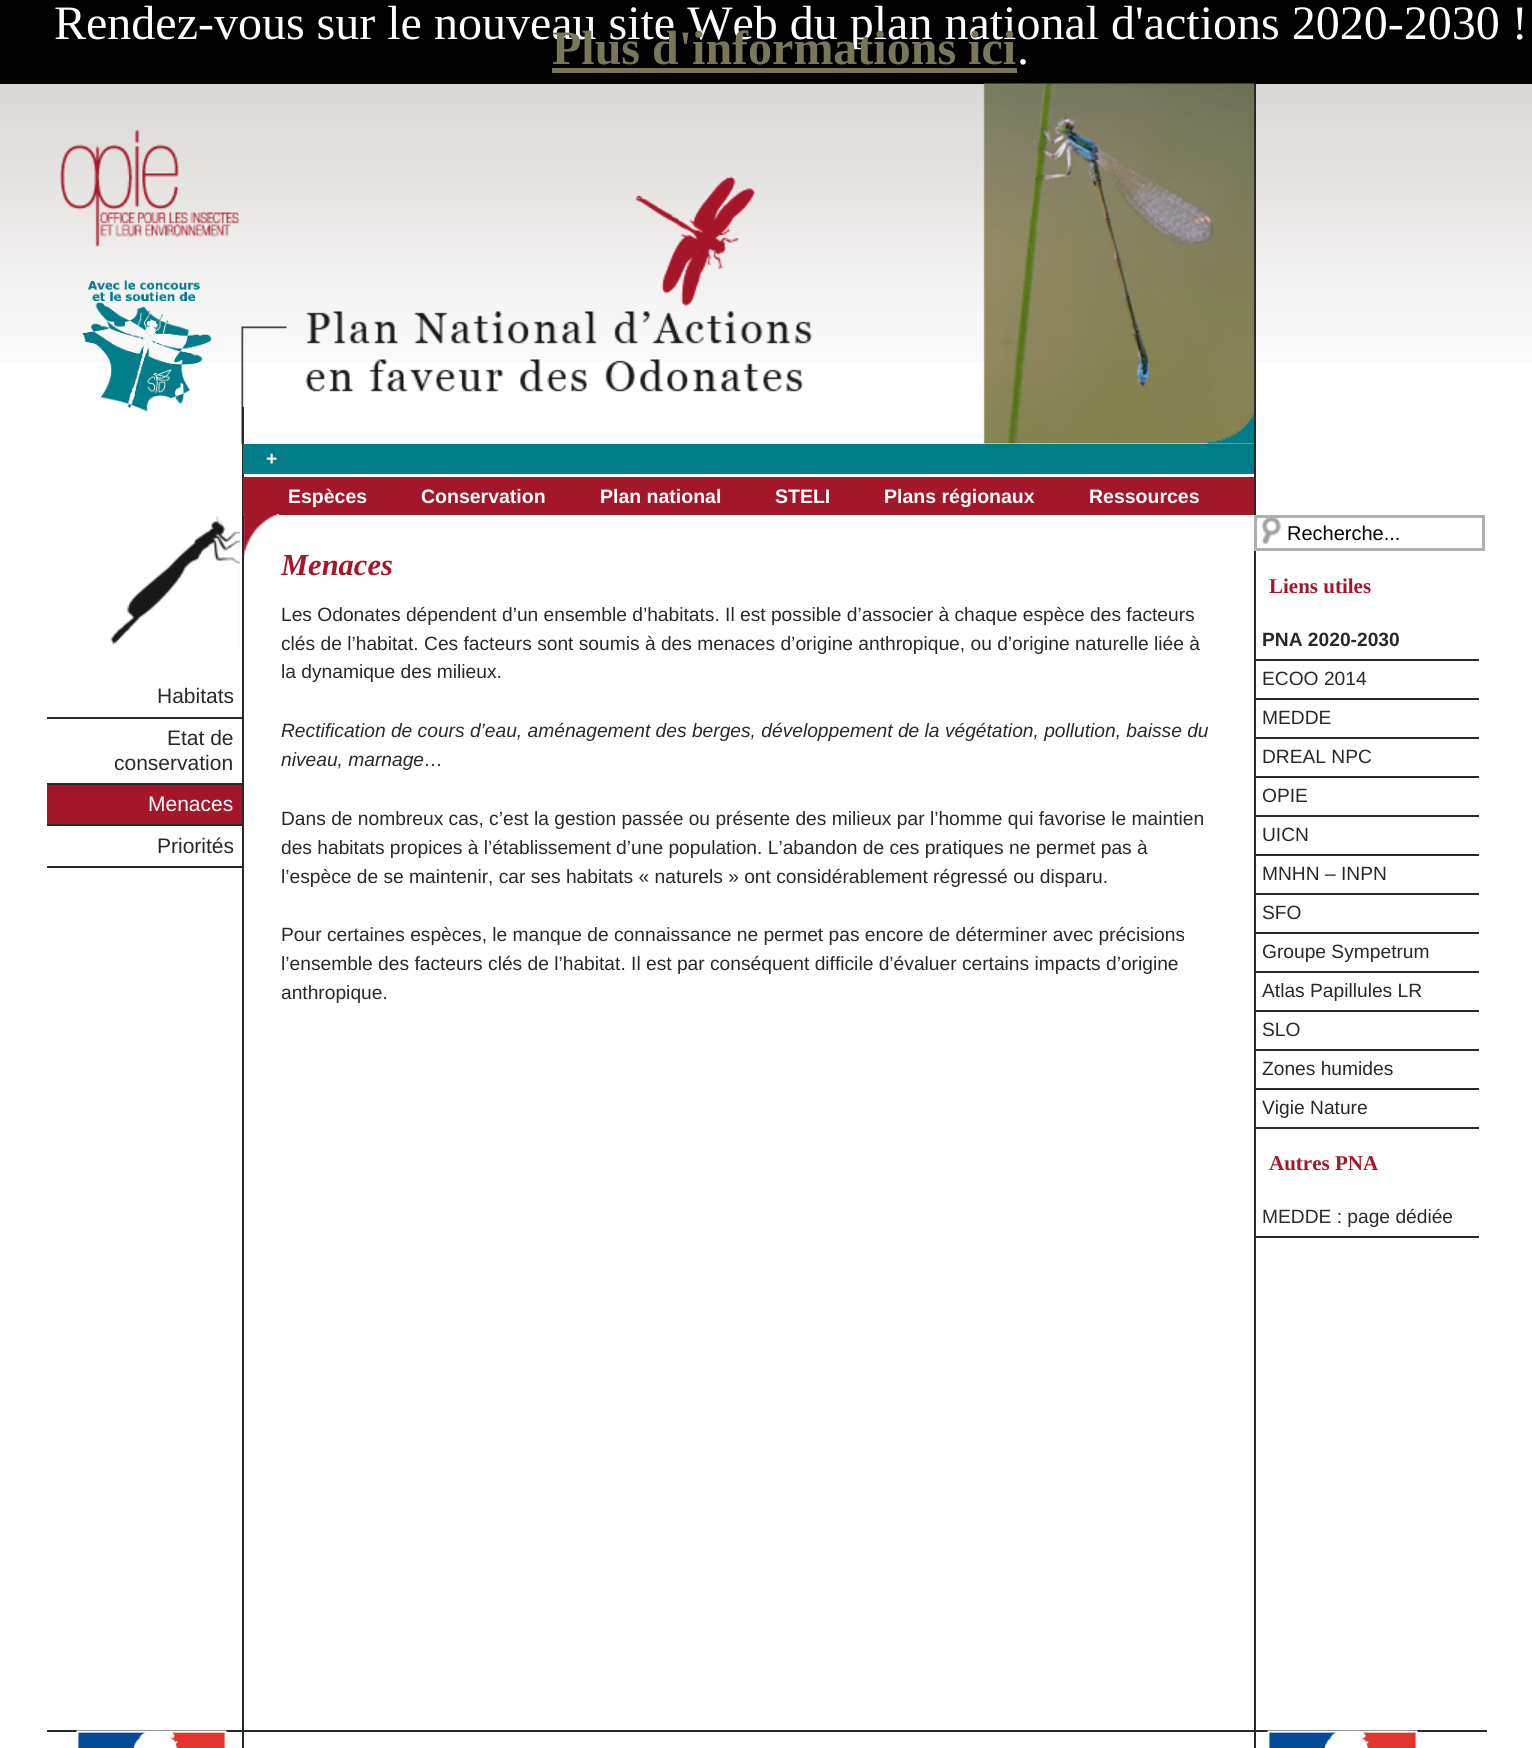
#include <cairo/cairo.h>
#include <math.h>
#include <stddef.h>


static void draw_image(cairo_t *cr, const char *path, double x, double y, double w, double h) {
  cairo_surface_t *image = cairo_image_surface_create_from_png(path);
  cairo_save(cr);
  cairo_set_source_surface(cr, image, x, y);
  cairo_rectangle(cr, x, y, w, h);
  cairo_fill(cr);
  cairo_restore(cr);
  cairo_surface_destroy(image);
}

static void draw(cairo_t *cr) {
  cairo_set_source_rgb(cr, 1, 1, 1);
  cairo_paint(cr);
  draw_image(cr, "images/1.png", 0, 84, 1532, 278);
  cairo_set_source_rgb(cr, 0, 0, 0);
  cairo_rectangle(cr, 0, 0, 1532, 84);
  cairo_fill(cr);
  cairo_set_source_rgb(cr, 122 / 255.0, 118 / 255.0, 90 / 255.0);
  cairo_rectangle(cr, 552, 68, 465, 5);
  cairo_fill(cr);
  draw_image(cr, "images/2.png", 59, 129, 180, 118);
  draw_image(cr, "images/3.png", 82, 280, 130, 132);
  cairo_set_source_rgb(cr, 41 / 255.0, 41 / 255.0, 41 / 255.0);
  cairo_rectangle(cr, 1254, 84, 2, 431);
  cairo_fill(cr);
  draw_image(cr, "images/4.png", 241, 83, 1013, 361);
  draw_image(cr, "images/5.png", 1207, 412, 47, 32);
  cairo_rectangle(cr, 242, 407, 2, 108);
  cairo_fill(cr);
  cairo_set_source_rgb(cr, 0, 125 / 255.0, 137 / 255.0);
  cairo_rectangle(cr, 243, 444, 1011, 30);
  cairo_fill(cr);
  cairo_set_source_rgb(cr, 164 / 255.0, 23 / 255.0, 41 / 255.0);
  cairo_rectangle(cr, 243, 477, 1011, 38);
  cairo_fill(cr);
  draw_image(cr, "images/6.png", 110, 515, 130, 131);
  cairo_set_source_rgb(cr, 41 / 255.0, 41 / 255.0, 41 / 255.0);
  cairo_rectangle(cr, 47, 717, 195, 2);
  cairo_fill(cr);
  cairo_rectangle(cr, 47, 783, 195, 2);
  cairo_fill(cr);
  cairo_rectangle(cr, 47, 824, 195, 2);
  cairo_fill(cr);
  cairo_set_source_rgb(cr, 164 / 255.0, 23 / 255.0, 41 / 255.0);
  cairo_rectangle(cr, 47, 785, 195, 39);
  cairo_fill(cr);
  cairo_set_source_rgb(cr, 41 / 255.0, 41 / 255.0, 41 / 255.0);
  cairo_rectangle(cr, 47, 866, 195, 2);
  cairo_fill(cr);
  draw_image(cr, "images/7.png", 243, 514, 36, 44);
  cairo_rectangle(cr, 1254, 551, 2, 1179);
  cairo_fill(cr);
  cairo_rectangle(cr, 242, 515, 2, 1215);
  cairo_fill(cr);
  draw_image(cr, "images/8.png", 1261, 518, 21, 26);
  cairo_rectangle(cr, 1255.5, 516.5, 228, 33);
  cairo_set_source_rgb(cr, 174 / 255.0, 175 / 255.0, 177 / 255.0);
  cairo_set_line_width(cr, 3);
  cairo_stroke(cr);
  cairo_set_source_rgb(cr, 41 / 255.0, 41 / 255.0, 41 / 255.0);
  cairo_rectangle(cr, 1254, 659, 225, 2);
  cairo_fill(cr);
  cairo_rectangle(cr, 1254, 698, 225, 2);
  cairo_fill(cr);
  cairo_rectangle(cr, 1254, 737, 225, 2);
  cairo_fill(cr);
  cairo_rectangle(cr, 1254, 776, 225, 2);
  cairo_fill(cr);
  cairo_rectangle(cr, 1254, 815, 225, 2);
  cairo_fill(cr);
  cairo_rectangle(cr, 1254, 854, 225, 2);
  cairo_fill(cr);
  cairo_rectangle(cr, 1254, 893, 225, 2);
  cairo_fill(cr);
  cairo_rectangle(cr, 1254, 932, 225, 2);
  cairo_fill(cr);
  cairo_rectangle(cr, 1254, 971, 225, 2);
  cairo_fill(cr);
  cairo_rectangle(cr, 1254, 1010, 225, 2);
  cairo_fill(cr);
  cairo_rectangle(cr, 1254, 1049, 225, 2);
  cairo_fill(cr);
  cairo_rectangle(cr, 1254, 1088, 225, 2);
  cairo_fill(cr);
  cairo_rectangle(cr, 1254, 1127, 225, 2);
  cairo_fill(cr);
  cairo_rectangle(cr, 1254, 1236, 225, 2);
  cairo_fill(cr);
  cairo_rectangle(cr, 47, 1730, 1440, 2);
  cairo_fill(cr);
  draw_image(cr, "images/9.png", 76, 1730, 151, 18);
  cairo_rectangle(cr, 242, 1731, 2, 17);
  cairo_fill(cr);
  cairo_rectangle(cr, 1254, 1731, 2, 17);
  cairo_fill(cr);
  draw_image(cr, "images/10.png", 1267, 1730, 151, 18);
  cairo_select_font_face(cr, "Liberation Serif", CAIRO_FONT_SLANT_NORMAL, CAIRO_FONT_WEIGHT_NORMAL);
  cairo_set_font_size(cr, 48);
  cairo_set_source_rgb(cr, 1, 1, 1);
  cairo_move_to(cr, 54, 39);
  cairo_show_text(cr, "Rendez-vous sur le nouveau site Web du plan national d'actions 2020-2030 !");
  cairo_select_font_face(cr, "Liberation Serif", CAIRO_FONT_SLANT_NORMAL, CAIRO_FONT_WEIGHT_BOLD);
  cairo_set_source_rgb(cr, 122 / 255.0, 118 / 255.0, 90 / 255.0);
  cairo_move_to(cr, 552, 64);
  cairo_show_text(cr, "Plus d'informations ici");
  cairo_select_font_face(cr, "Liberation Serif", CAIRO_FONT_SLANT_NORMAL, CAIRO_FONT_WEIGHT_NORMAL);
  cairo_set_source_rgb(cr, 1, 1, 1);
  cairo_move_to(cr, 1017, 64);
  cairo_show_text(cr, ".");
  cairo_select_font_face(cr, "Liberation Sans", CAIRO_FONT_SLANT_NORMAL, CAIRO_FONT_WEIGHT_BOLD);
  cairo_set_font_size(cr, 19.2);
  cairo_move_to(cr, 266, 465);
  cairo_show_text(cr, "+");
  cairo_set_font_size(cr, 19.5);
  cairo_move_to(cr, 288, 503);
  cairo_show_text(cr, "Espèces");
  cairo_move_to(cr, 421, 503);
  cairo_show_text(cr, "Conservation");
  cairo_move_to(cr, 600, 503);
  cairo_show_text(cr, "Plan national");
  cairo_move_to(cr, 775, 503);
  cairo_show_text(cr, "STELI");
  cairo_move_to(cr, 884, 503);
  cairo_show_text(cr, "Plans régionaux");
  cairo_move_to(cr, 1089, 503);
  cairo_show_text(cr, "Ressources");
  cairo_select_font_face(cr, "Liberation Sans", CAIRO_FONT_SLANT_NORMAL, CAIRO_FONT_WEIGHT_NORMAL);
  cairo_set_font_size(cr, 21);
  cairo_set_source_rgb(cr, 41 / 255.0, 41 / 255.0, 41 / 255.0);
  cairo_move_to(cr, 157, 703);
  cairo_show_text(cr, "Habitats");
  cairo_move_to(cr, 167, 745);
  cairo_show_text(cr, "Etat de");
  cairo_move_to(cr, 114, 770);
  cairo_show_text(cr, "conservation");
  cairo_set_source_rgb(cr, 1, 1, 1);
  cairo_move_to(cr, 148, 811);
  cairo_show_text(cr, "Menaces");
  cairo_set_source_rgb(cr, 41 / 255.0, 41 / 255.0, 41 / 255.0);
  cairo_move_to(cr, 157, 853);
  cairo_show_text(cr, "Priorités");
  cairo_select_font_face(cr, "Liberation Serif", CAIRO_FONT_SLANT_ITALIC, CAIRO_FONT_WEIGHT_BOLD);
  cairo_set_font_size(cr, 30.5);
  cairo_set_source_rgb(cr, 164 / 255.0, 23 / 255.0, 41 / 255.0);
  cairo_move_to(cr, 281, 575);
  cairo_show_text(cr, "Menaces");
  cairo_select_font_face(cr, "Liberation Sans", CAIRO_FONT_SLANT_NORMAL, CAIRO_FONT_WEIGHT_NORMAL);
  cairo_set_font_size(cr, 19.2);
  cairo_set_source_rgb(cr, 41 / 255.0, 41 / 255.0, 41 / 255.0);
  cairo_move_to(cr, 281, 621);
  cairo_show_text(cr, "Les Odonates dépendent d’un ensemble d’habitats. Il est possible d’associer à chaque espèce des facteurs");
  cairo_move_to(cr, 281, 650);
  cairo_show_text(cr, "clés de l’habitat. Ces facteurs sont soumis à des menaces d’origine anthropique, ou d’origine naturelle liée à");
  cairo_move_to(cr, 281, 678);
  cairo_show_text(cr, "la dynamique des milieux.");
  cairo_select_font_face(cr, "Liberation Sans", CAIRO_FONT_SLANT_ITALIC, CAIRO_FONT_WEIGHT_NORMAL);
  cairo_move_to(cr, 281, 737);
  cairo_show_text(cr, "Rectification de cours d’eau, aménagement des berges, développement de la végétation, pollution, baisse du");
  cairo_move_to(cr, 281, 766);
  cairo_show_text(cr, "niveau, marnage…");
  cairo_select_font_face(cr, "Liberation Sans", CAIRO_FONT_SLANT_NORMAL, CAIRO_FONT_WEIGHT_NORMAL);
  cairo_move_to(cr, 281, 825);
  cairo_show_text(cr, "Dans de nombreux cas, c’est la gestion passée ou présente des milieux par l’homme qui favorise le maintien");
  cairo_move_to(cr, 281, 854);
  cairo_show_text(cr, "des habitats propices à l’établissement d’une population. L’abandon de ces pratiques ne permet pas à");
  cairo_move_to(cr, 281, 883);
  cairo_show_text(cr, "l’espèce de se maintenir, car ses habitats « naturels » ont considérablement régressé ou disparu.");
  cairo_move_to(cr, 281, 941);
  cairo_show_text(cr, "Pour certaines espèces, le manque de connaissance ne permet pas encore de déterminer avec précisions");
  cairo_move_to(cr, 281, 970);
  cairo_show_text(cr, "l’ensemble des facteurs clés de l’habitat. Il est par conséquent difficile d’évaluer certains impacts d’origine");
  cairo_move_to(cr, 281, 999);
  cairo_show_text(cr, "anthropique.");
  cairo_set_font_size(cr, 20);
  cairo_set_source_rgb(cr, 0, 0, 0);
  cairo_move_to(cr, 1287, 540);
  cairo_show_text(cr, "Recherche...");
  cairo_select_font_face(cr, "Liberation Serif", CAIRO_FONT_SLANT_NORMAL, CAIRO_FONT_WEIGHT_BOLD);
  cairo_set_font_size(cr, 21);
  cairo_set_source_rgb(cr, 164 / 255.0, 23 / 255.0, 41 / 255.0);
  cairo_move_to(cr, 1269, 593);
  cairo_show_text(cr, "Liens utiles");
  cairo_select_font_face(cr, "Liberation Sans", CAIRO_FONT_SLANT_NORMAL, CAIRO_FONT_WEIGHT_BOLD);
  cairo_set_font_size(cr, 19.2);
  cairo_set_source_rgb(cr, 41 / 255.0, 41 / 255.0, 41 / 255.0);
  cairo_move_to(cr, 1262, 646);
  cairo_show_text(cr, "PNA 2020-2030");
  cairo_select_font_face(cr, "Liberation Sans", CAIRO_FONT_SLANT_NORMAL, CAIRO_FONT_WEIGHT_NORMAL);
  cairo_move_to(cr, 1262, 685);
  cairo_show_text(cr, "ECOO 2014");
  cairo_move_to(cr, 1262, 724);
  cairo_show_text(cr, "MEDDE");
  cairo_move_to(cr, 1262, 763);
  cairo_show_text(cr, "DREAL NPC");
  cairo_move_to(cr, 1262, 802);
  cairo_show_text(cr, "OPIE");
  cairo_move_to(cr, 1262, 841);
  cairo_show_text(cr, "UICN");
  cairo_move_to(cr, 1262, 880);
  cairo_show_text(cr, "MNHN – INPN");
  cairo_move_to(cr, 1262, 919);
  cairo_show_text(cr, "SFO");
  cairo_move_to(cr, 1262, 958);
  cairo_show_text(cr, "Groupe Sympetrum");
  cairo_move_to(cr, 1262, 997);
  cairo_show_text(cr, "Atlas Papillules LR");
  cairo_move_to(cr, 1262, 1036);
  cairo_show_text(cr, "SLO");
  cairo_move_to(cr, 1262, 1075);
  cairo_show_text(cr, "Zones humides");
  cairo_move_to(cr, 1262, 1114);
  cairo_show_text(cr, "Vigie Nature");
  cairo_select_font_face(cr, "Liberation Serif", CAIRO_FONT_SLANT_NORMAL, CAIRO_FONT_WEIGHT_BOLD);
  cairo_set_font_size(cr, 21);
  cairo_set_source_rgb(cr, 164 / 255.0, 23 / 255.0, 41 / 255.0);
  cairo_move_to(cr, 1269, 1170);
  cairo_show_text(cr, "Autres PNA");
  cairo_select_font_face(cr, "Liberation Sans", CAIRO_FONT_SLANT_NORMAL, CAIRO_FONT_WEIGHT_NORMAL);
  cairo_set_font_size(cr, 19.2);
  cairo_set_source_rgb(cr, 41 / 255.0, 41 / 255.0, 41 / 255.0);
  cairo_move_to(cr, 1262, 1223);
  cairo_show_text(cr, "MEDDE : page dédiée");
}

int main(void) {
  cairo_surface_t *surface = cairo_image_surface_create(CAIRO_FORMAT_RGB24, 1532, 1748);
  cairo_t *cr = cairo_create(surface);
  cairo_font_options_t *options = cairo_font_options_create();
  cairo_font_options_set_hint_metrics(options, CAIRO_HINT_METRICS_OFF);
  cairo_font_options_set_hint_style(options, CAIRO_HINT_STYLE_NONE);
  cairo_set_font_options(cr, options);
  cairo_set_miter_limit(cr, 4);
  draw(cr);
  cairo_surface_write_to_png(surface, "out.png");
  cairo_font_options_destroy(options);
  cairo_destroy(cr);
  cairo_surface_destroy(surface);
  return 0;
}
